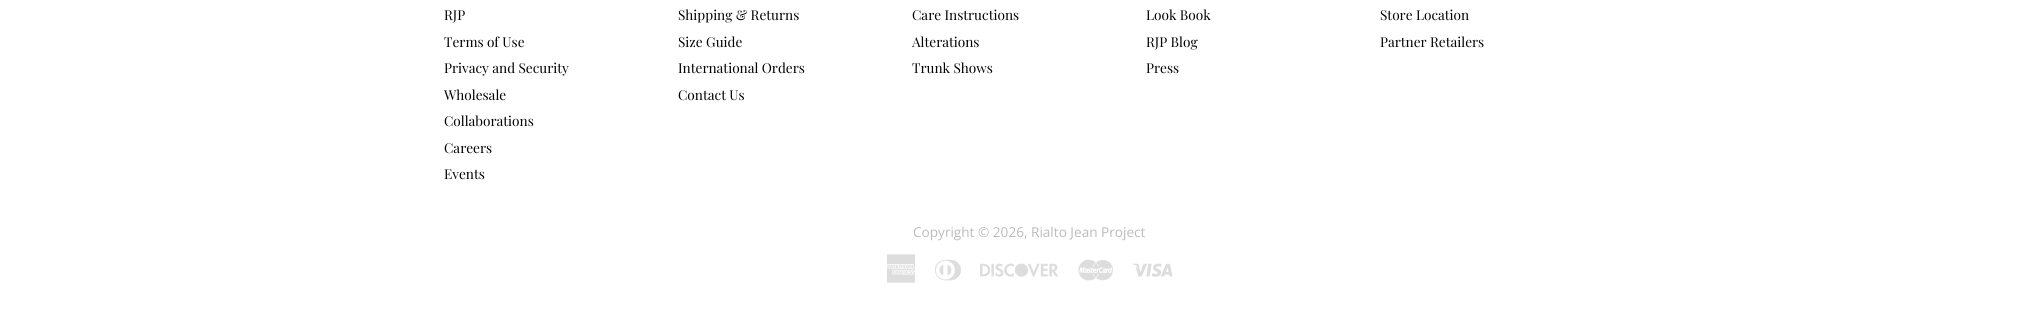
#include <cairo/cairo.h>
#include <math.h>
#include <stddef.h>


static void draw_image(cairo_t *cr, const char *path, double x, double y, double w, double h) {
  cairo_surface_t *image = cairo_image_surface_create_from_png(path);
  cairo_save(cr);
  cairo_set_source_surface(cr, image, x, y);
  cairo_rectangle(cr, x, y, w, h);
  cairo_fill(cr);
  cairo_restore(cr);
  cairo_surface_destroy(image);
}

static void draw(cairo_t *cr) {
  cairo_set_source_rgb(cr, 1, 1, 1);
  cairo_paint(cr);
  draw_image(cr, "images/1.png", 886, 254, 29, 29);
  draw_image(cr, "images/2.png", 935, 259, 26, 22);
  draw_image(cr, "images/3.png", 980, 263, 79, 14);
  draw_image(cr, "images/4.png", 1078, 259, 35, 22);
  draw_image(cr, "images/5.png", 1132, 263, 41, 14);
  cairo_select_font_face(cr, "Playfair Display", CAIRO_FONT_SLANT_NORMAL, CAIRO_FONT_WEIGHT_NORMAL);
  cairo_set_font_size(cr, 13.6);
  cairo_set_source_rgb(cr, 0, 0, 0);
  cairo_move_to(cr, 444, 20);
  cairo_show_text(cr, "RJP");
  cairo_move_to(cr, 444, 47);
  cairo_show_text(cr, "Terms of Use");
  cairo_move_to(cr, 444, 73);
  cairo_show_text(cr, "Privacy and Security");
  cairo_move_to(cr, 444, 100);
  cairo_show_text(cr, "Wholesale");
  cairo_move_to(cr, 444, 126);
  cairo_show_text(cr, "Collaborations");
  cairo_move_to(cr, 444, 153);
  cairo_show_text(cr, "Careers");
  cairo_move_to(cr, 444, 179);
  cairo_show_text(cr, "Events");
  cairo_move_to(cr, 678, 20);
  cairo_show_text(cr, "Shipping & Returns");
  cairo_move_to(cr, 678, 47);
  cairo_show_text(cr, "Size Guide");
  cairo_move_to(cr, 678, 73);
  cairo_show_text(cr, "International Orders");
  cairo_move_to(cr, 678, 100);
  cairo_show_text(cr, "Contact Us");
  cairo_move_to(cr, 912, 20);
  cairo_show_text(cr, "Care Instructions");
  cairo_move_to(cr, 912, 47);
  cairo_show_text(cr, "Alterations");
  cairo_move_to(cr, 912, 73);
  cairo_show_text(cr, "Trunk Shows");
  cairo_move_to(cr, 1146, 20);
  cairo_show_text(cr, "Look Book");
  cairo_move_to(cr, 1146, 47);
  cairo_show_text(cr, "RJP Blog");
  cairo_move_to(cr, 1146, 73);
  cairo_show_text(cr, "Press");
  cairo_move_to(cr, 1380, 20);
  cairo_show_text(cr, "Store Location");
  cairo_move_to(cr, 1380, 47);
  cairo_show_text(cr, "Partner Retailers");
  cairo_select_font_face(cr, "Open Sans", CAIRO_FONT_SLANT_NORMAL, CAIRO_FONT_WEIGHT_NORMAL);
  cairo_set_source_rgb(cr, 187 / 255.0, 187 / 255.0, 187 / 255.0);
  cairo_move_to(cr, 913, 237);
  cairo_show_text(cr, "Copyright © 2026, Rialto Jean Project");
}

int main(void) {
  cairo_surface_t *surface = cairo_image_surface_create(CAIRO_FORMAT_RGB24, 2028, 314);
  cairo_t *cr = cairo_create(surface);
  cairo_font_options_t *options = cairo_font_options_create();
  cairo_font_options_set_hint_metrics(options, CAIRO_HINT_METRICS_OFF);
  cairo_font_options_set_hint_style(options, CAIRO_HINT_STYLE_NONE);
  cairo_set_font_options(cr, options);
  cairo_set_miter_limit(cr, 4);
  draw(cr);
  cairo_surface_write_to_png(surface, "out.png");
  cairo_font_options_destroy(options);
  cairo_destroy(cr);
  cairo_surface_destroy(surface);
  return 0;
}
